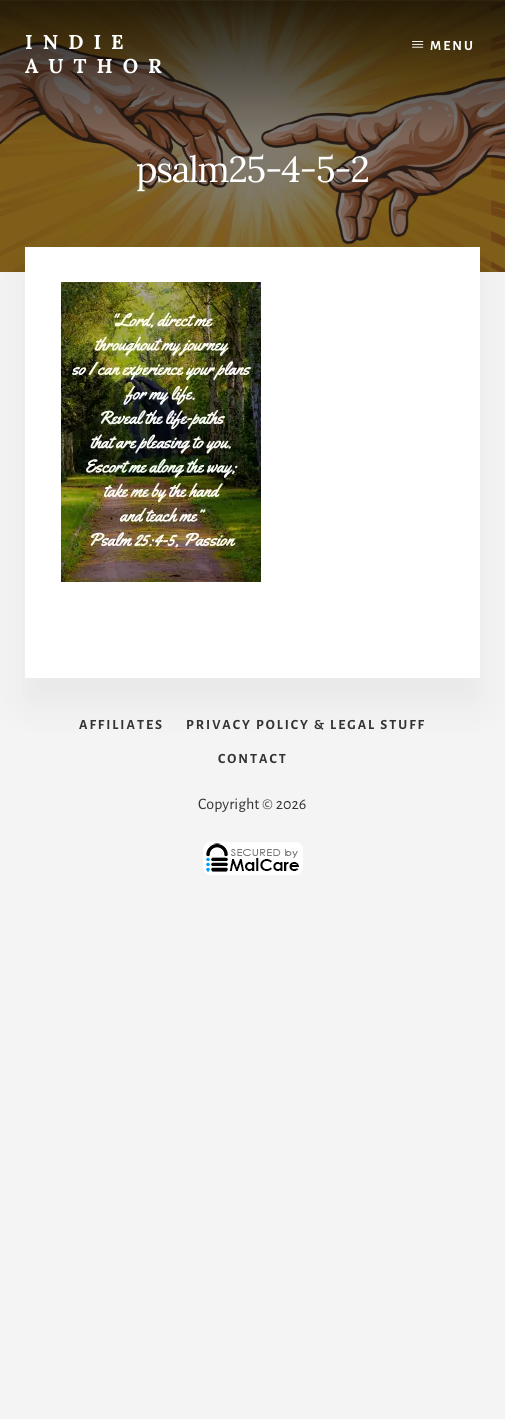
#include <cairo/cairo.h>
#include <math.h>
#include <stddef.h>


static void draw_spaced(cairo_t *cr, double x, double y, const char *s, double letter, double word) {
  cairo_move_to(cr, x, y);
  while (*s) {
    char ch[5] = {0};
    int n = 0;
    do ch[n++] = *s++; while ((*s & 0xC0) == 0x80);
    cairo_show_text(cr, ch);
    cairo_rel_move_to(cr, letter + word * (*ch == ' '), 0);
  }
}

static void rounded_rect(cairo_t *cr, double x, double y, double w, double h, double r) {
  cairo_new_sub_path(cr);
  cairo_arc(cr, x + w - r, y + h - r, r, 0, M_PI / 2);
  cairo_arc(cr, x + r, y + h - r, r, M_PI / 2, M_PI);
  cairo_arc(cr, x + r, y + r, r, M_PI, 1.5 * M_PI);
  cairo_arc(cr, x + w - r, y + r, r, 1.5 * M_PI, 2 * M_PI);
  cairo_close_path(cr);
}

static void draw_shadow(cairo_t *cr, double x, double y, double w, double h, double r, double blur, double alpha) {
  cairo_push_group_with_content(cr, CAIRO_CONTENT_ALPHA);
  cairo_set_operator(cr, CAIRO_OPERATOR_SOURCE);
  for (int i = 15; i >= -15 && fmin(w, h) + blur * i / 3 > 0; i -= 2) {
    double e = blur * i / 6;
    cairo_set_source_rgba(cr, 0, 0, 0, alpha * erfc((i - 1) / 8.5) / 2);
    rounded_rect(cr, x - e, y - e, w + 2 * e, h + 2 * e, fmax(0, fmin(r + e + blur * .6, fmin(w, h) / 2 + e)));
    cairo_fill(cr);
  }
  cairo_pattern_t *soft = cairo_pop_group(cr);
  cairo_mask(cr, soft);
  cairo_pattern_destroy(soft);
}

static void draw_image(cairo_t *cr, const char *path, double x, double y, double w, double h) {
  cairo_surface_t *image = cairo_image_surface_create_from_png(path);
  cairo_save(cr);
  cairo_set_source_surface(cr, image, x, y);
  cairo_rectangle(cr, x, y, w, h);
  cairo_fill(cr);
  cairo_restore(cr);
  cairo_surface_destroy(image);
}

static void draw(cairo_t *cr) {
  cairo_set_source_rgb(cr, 244 / 255.0, 244 / 255.0, 244 / 255.0);
  cairo_paint(cr);
  draw_image(cr, "images/1.png", 0, 0, 505, 272);
  draw_image(cr, "images/2.png", 412, 41, 12, 7);
  cairo_set_source_rgb(cr, 0, 0, 0);
  draw_shadow(cr, 25, 272, 455, 431, 0, 20, 0.05);
  cairo_set_source_rgb(cr, 1, 1, 1);
  cairo_rectangle(cr, 25, 247, 455, 431);
  cairo_fill(cr);
  draw_image(cr, "images/3.png", 61, 282, 200, 300);
  draw_image(cr, "images/4.png", 203, 842, 100, 33);
  cairo_select_font_face(cr, "Lora", CAIRO_FONT_SLANT_NORMAL, CAIRO_FONT_WEIGHT_BOLD);
  cairo_set_font_size(cr, 20);
  draw_spaced(cr, 25, 49, "INDIE", 10, 0);
  draw_spaced(cr, 25, 73, "AUTHOR", 10, 0);
  cairo_select_font_face(cr, "Alegreya Sans", CAIRO_FONT_SLANT_NORMAL, CAIRO_FONT_WEIGHT_BOLD);
  cairo_set_font_size(cr, 14);
  draw_spaced(cr, 430, 50, "MENU", 2, 0);
  cairo_select_font_face(cr, "Lora", CAIRO_FONT_SLANT_NORMAL, CAIRO_FONT_WEIGHT_NORMAL);
  cairo_set_font_size(cr, 36);
  draw_spaced(cr, 136, 182, "psalm25-4-5-2", -1.25, 0);
  cairo_select_font_face(cr, "Alegreya Sans", CAIRO_FONT_SLANT_NORMAL, CAIRO_FONT_WEIGHT_BOLD);
  cairo_set_font_size(cr, 14);
  cairo_set_source_rgb(cr, 51 / 255.0, 51 / 255.0, 51 / 255.0);
  draw_spaced(cr, 79, 729, "AFFILIATES", 2, 0);
  draw_spaced(cr, 186, 729, "PRIVACY POLICY & LEGAL STUFF", 2, 0);
  draw_spaced(cr, 218, 763, "CONTACT", 2, 0);
  cairo_select_font_face(cr, "Alegreya Sans", CAIRO_FONT_SLANT_NORMAL, CAIRO_FONT_WEIGHT_NORMAL);
  cairo_set_font_size(cr, 16);
  cairo_move_to(cr, 198, 809);
  cairo_show_text(cr, "Copyright © 2026");
}

int main(void) {
  cairo_surface_t *surface = cairo_image_surface_create(CAIRO_FORMAT_RGB24, 505, 1419);
  cairo_t *cr = cairo_create(surface);
  cairo_font_options_t *options = cairo_font_options_create();
  cairo_font_options_set_hint_metrics(options, CAIRO_HINT_METRICS_OFF);
  cairo_font_options_set_hint_style(options, CAIRO_HINT_STYLE_NONE);
  cairo_set_font_options(cr, options);
  cairo_set_miter_limit(cr, 4);
  draw(cr);
  cairo_surface_write_to_png(surface, "out.png");
  cairo_font_options_destroy(options);
  cairo_destroy(cr);
  cairo_surface_destroy(surface);
  return 0;
}
